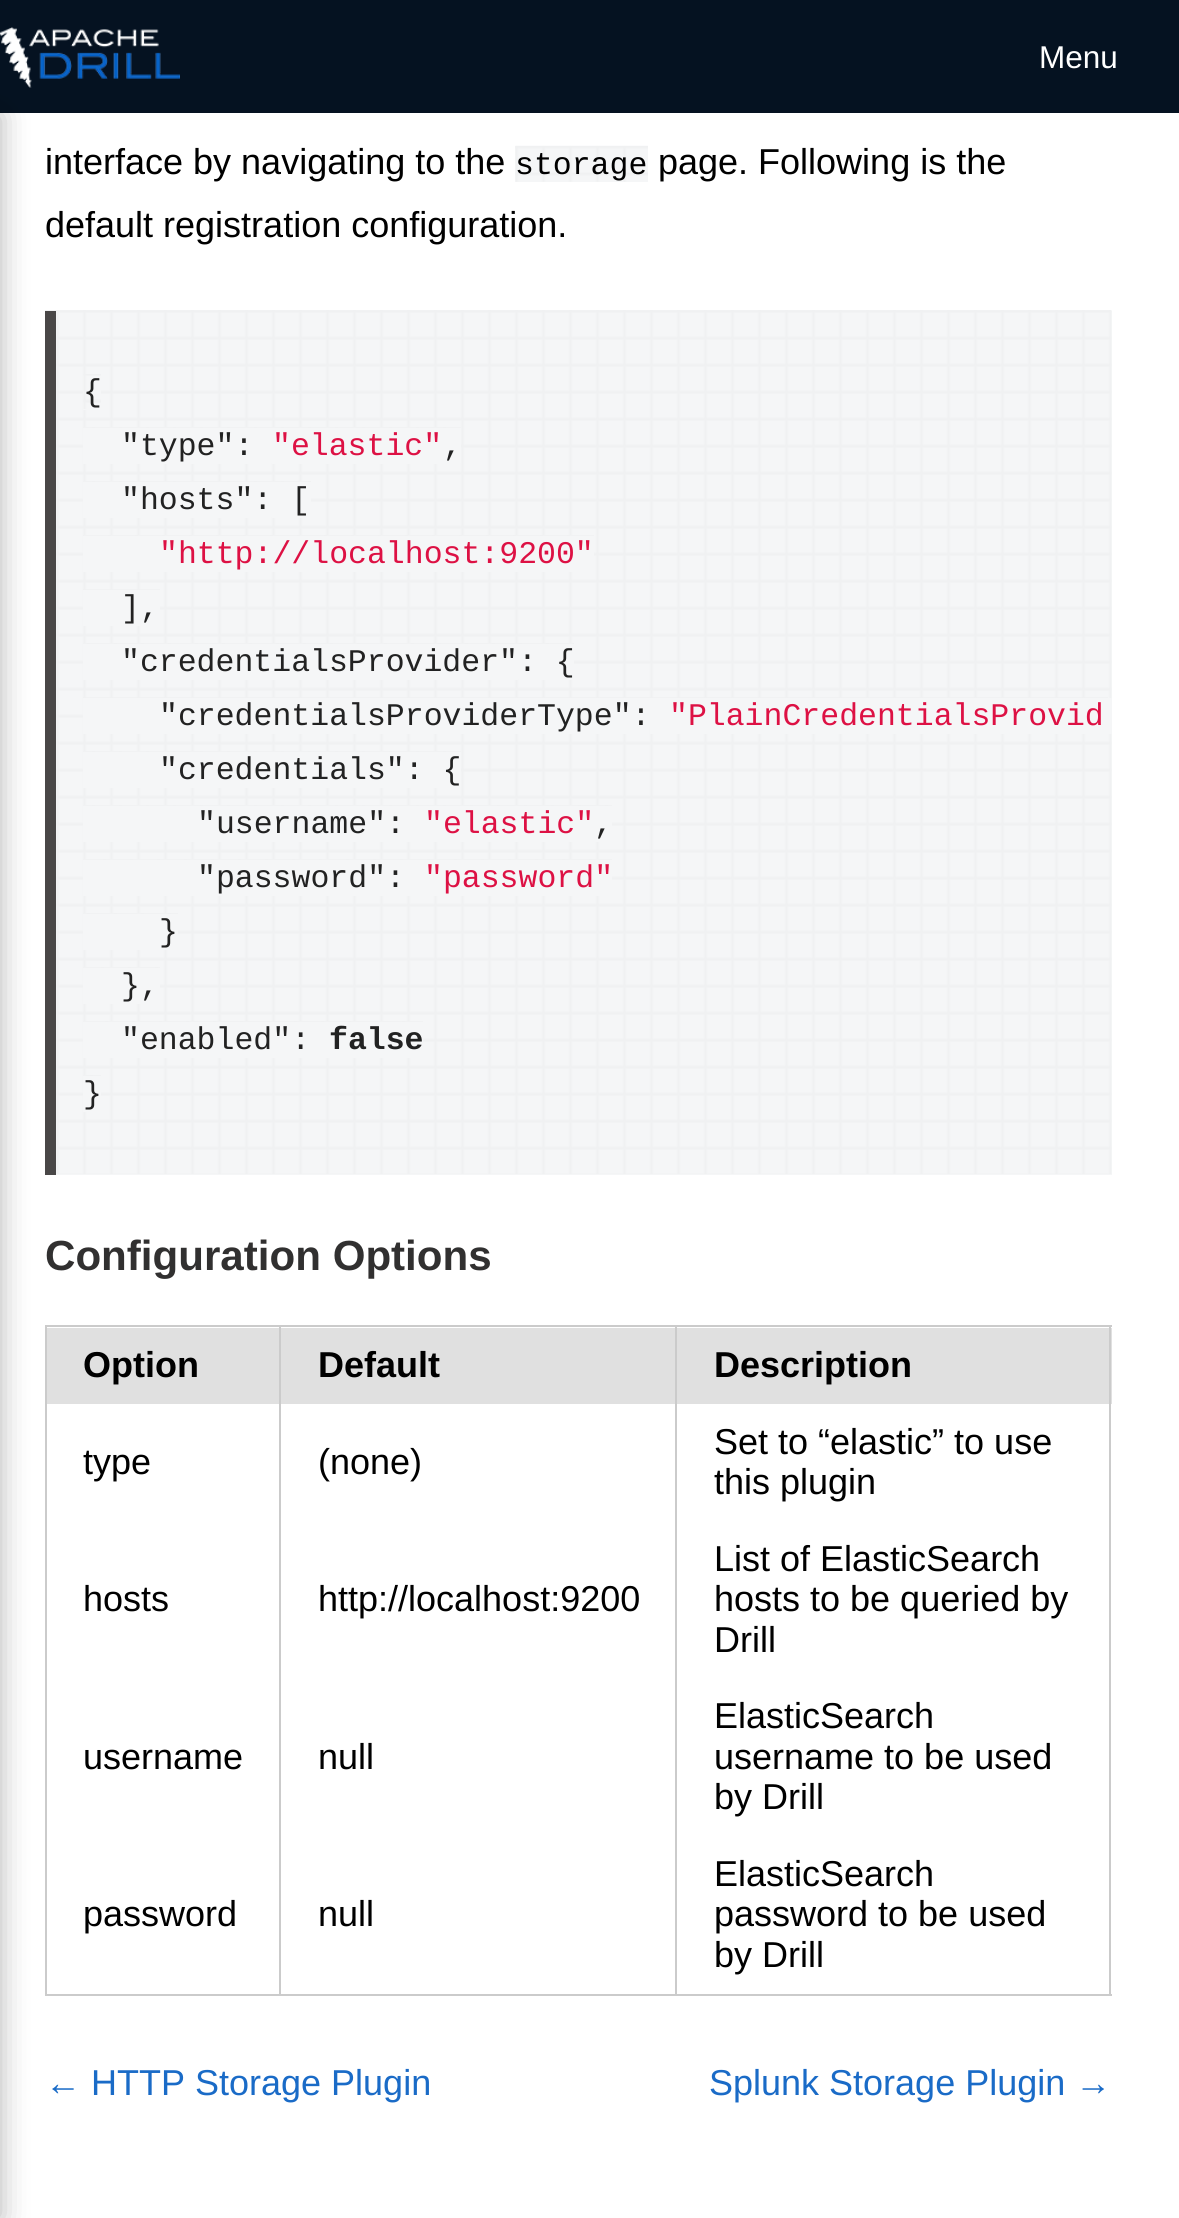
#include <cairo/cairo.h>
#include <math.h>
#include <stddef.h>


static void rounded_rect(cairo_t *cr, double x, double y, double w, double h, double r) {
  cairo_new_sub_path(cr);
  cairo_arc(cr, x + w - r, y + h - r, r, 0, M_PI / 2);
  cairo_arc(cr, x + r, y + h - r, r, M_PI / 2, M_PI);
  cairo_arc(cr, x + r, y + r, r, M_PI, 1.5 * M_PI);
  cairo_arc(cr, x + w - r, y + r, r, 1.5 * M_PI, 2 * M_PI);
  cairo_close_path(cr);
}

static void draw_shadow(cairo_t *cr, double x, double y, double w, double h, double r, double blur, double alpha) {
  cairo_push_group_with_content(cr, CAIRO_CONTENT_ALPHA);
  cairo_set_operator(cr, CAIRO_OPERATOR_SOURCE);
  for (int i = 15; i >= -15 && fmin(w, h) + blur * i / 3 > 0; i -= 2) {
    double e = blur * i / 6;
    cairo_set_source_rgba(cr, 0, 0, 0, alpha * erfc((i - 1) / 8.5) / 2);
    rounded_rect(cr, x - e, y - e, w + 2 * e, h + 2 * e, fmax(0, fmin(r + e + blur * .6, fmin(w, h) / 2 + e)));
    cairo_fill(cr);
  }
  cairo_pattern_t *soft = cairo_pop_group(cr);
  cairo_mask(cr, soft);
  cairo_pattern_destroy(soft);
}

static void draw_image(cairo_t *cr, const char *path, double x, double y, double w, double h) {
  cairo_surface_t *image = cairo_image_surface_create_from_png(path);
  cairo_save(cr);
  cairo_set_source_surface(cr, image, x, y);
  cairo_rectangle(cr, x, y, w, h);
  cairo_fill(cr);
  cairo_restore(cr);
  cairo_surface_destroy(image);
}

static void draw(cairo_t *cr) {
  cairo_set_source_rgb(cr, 1, 1, 1);
  cairo_paint(cr);
  cairo_set_source_rgb(cr, 5 / 255.0, 18 / 255.0, 33 / 255.0);
  cairo_rectangle(cr, 0, 0, 1179, 113);
  cairo_fill(cr);
  draw_image(cr, "images/1.png", 0, 27, 180, 61);
  cairo_set_source_rgb(cr, 0, 0, 0);
  draw_shadow(cr, -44, 115, 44, 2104, 0, 14.5, 0.3);
  cairo_set_source_rgb(cr, 245 / 255.0, 246 / 255.0, 247 / 255.0);
  cairo_rectangle(cr, 515, 146, 133, 36);
  cairo_fill(cr);
  draw_image(cr, "images/2.png", 515, 145, 133, 37);
  cairo_rectangle(cr, 56, 311, 1056, 864);
  cairo_fill(cr);
  draw_image(cr, "images/3.png", 45, 310, 1067, 864);
  cairo_set_source_rgb(cr, 73 / 255.0, 71 / 255.0, 71 / 255.0);
  cairo_rectangle(cr, 45, 311, 11, 864);
  cairo_fill(cr);
  cairo_set_source_rgb(cr, 245 / 255.0, 246 / 255.0, 247 / 255.0);
  cairo_rectangle(cr, 83, 374, 18, 36);
  cairo_fill(cr);
  draw_image(cr, "images/4.png", 83, 374, 1025, 702);
  cairo_rectangle(cr, 83, 428, 171, 36);
  cairo_fill(cr);
  cairo_rectangle(cr, 254, 428, 18, 35);
  cairo_fill(cr);
  cairo_rectangle(cr, 272, 428, 171, 36);
  cairo_fill(cr);
  cairo_rectangle(cr, 443, 428, 18, 35);
  cairo_fill(cr);
  cairo_rectangle(cr, 83, 482, 171, 36);
  cairo_fill(cr);
  cairo_rectangle(cr, 254, 482, 18, 35);
  cairo_fill(cr);
  cairo_rectangle(cr, 272, 482, 39, 36);
  cairo_fill(cr);
  cairo_rectangle(cr, 83, 536, 511, 36);
  cairo_fill(cr);
  cairo_rectangle(cr, 83, 590, 77, 36);
  cairo_fill(cr);
  cairo_rectangle(cr, 83, 644, 435, 36);
  cairo_fill(cr);
  cairo_rectangle(cr, 518, 644, 20, 35);
  cairo_fill(cr);
  cairo_rectangle(cr, 538, 644, 36, 36);
  cairo_fill(cr);
  cairo_rectangle(cr, 83, 698, 549, 36);
  cairo_fill(cr);
  cairo_rectangle(cr, 632, 698, 18, 29);
  cairo_fill(cr);
  cairo_rectangle(cr, 650, 698, 462, 36);
  cairo_fill(cr);
  cairo_rectangle(cr, 83, 752, 360, 36);
  cairo_fill(cr);
  cairo_rectangle(cr, 443, 752, 18, 35);
  cairo_fill(cr);
  cairo_rectangle(cr, 83, 806, 302, 36);
  cairo_fill(cr);
  cairo_rectangle(cr, 385, 806, 20, 35);
  cairo_fill(cr);
  cairo_rectangle(cr, 405, 806, 207, 36);
  cairo_fill(cr);
  cairo_rectangle(cr, 83, 860, 302, 36);
  cairo_fill(cr);
  cairo_rectangle(cr, 385, 860, 20, 35);
  cairo_fill(cr);
  cairo_rectangle(cr, 405, 860, 207, 36);
  cairo_fill(cr);
  cairo_rectangle(cr, 83, 914, 95, 36);
  cairo_fill(cr);
  cairo_rectangle(cr, 83, 968, 77, 36);
  cairo_fill(cr);
  cairo_rectangle(cr, 83, 1022, 340, 36);
  cairo_fill(cr);
  cairo_rectangle(cr, 83, 1076, 18, 36);
  cairo_fill(cr);
  cairo_set_source_rgb(cr, 203 / 255.0, 203 / 255.0, 203 / 255.0);
  cairo_rectangle(cr, 45, 1325, 1067, 2);
  cairo_fill(cr);
  cairo_set_source_rgb(cr, 224 / 255.0, 224 / 255.0, 224 / 255.0);
  cairo_rectangle(cr, 47, 1328, 1065, 76);
  cairo_fill(cr);
  cairo_set_source_rgb(cr, 203 / 255.0, 203 / 255.0, 203 / 255.0);
  cairo_rectangle(cr, 1109, 1325, 2, 671);
  cairo_fill(cr);
  cairo_rectangle(cr, 45, 1994, 1067, 2);
  cairo_fill(cr);
  cairo_rectangle(cr, 45, 1325, 2, 671);
  cairo_fill(cr);
  cairo_rectangle(cr, 279, 1325, 2, 671);
  cairo_fill(cr);
  cairo_rectangle(cr, 675, 1325, 2, 671);
  cairo_fill(cr);
  cairo_select_font_face(cr, "Liberation Sans", CAIRO_FONT_SLANT_NORMAL, CAIRO_FONT_WEIGHT_NORMAL);
  cairo_set_font_size(cr, 31.5);
  cairo_set_source_rgb(cr, 1, 1, 1);
  cairo_move_to(cr, 1039, 68);
  cairo_show_text(cr, "Menu");
  cairo_set_font_size(cr, 36);
  cairo_set_source_rgb(cr, 0, 0, 0);
  cairo_move_to(cr, 45, 174);
  cairo_show_text(cr, "interface by navigating to the");
  cairo_move_to(cr, 658, 174);
  cairo_show_text(cr, "page. Following is the");
  cairo_select_font_face(cr, "Liberation Mono", CAIRO_FONT_SLANT_NORMAL, CAIRO_FONT_WEIGHT_NORMAL);
  cairo_set_font_size(cr, 31.5);
  cairo_move_to(cr, 515, 174);
  cairo_show_text(cr, "storage");
  cairo_select_font_face(cr, "Liberation Sans", CAIRO_FONT_SLANT_NORMAL, CAIRO_FONT_WEIGHT_NORMAL);
  cairo_set_font_size(cr, 36);
  cairo_move_to(cr, 45, 237);
  cairo_show_text(cr, "default registration configuration.");
  cairo_select_font_face(cr, "Liberation Mono", CAIRO_FONT_SLANT_NORMAL, CAIRO_FONT_WEIGHT_NORMAL);
  cairo_set_font_size(cr, 31.5);
  cairo_set_source_rgb(cr, 34 / 255.0, 34 / 255.0, 34 / 255.0);
  cairo_move_to(cr, 83, 401);
  cairo_show_text(cr, "{");
  cairo_move_to(cr, 121, 455);
  cairo_show_text(cr, "\"type\":");
  cairo_set_source_rgb(cr, 221 / 255.0, 17 / 255.0, 68 / 255.0);
  cairo_move_to(cr, 272, 455);
  cairo_show_text(cr, "\"elastic\"");
  cairo_set_source_rgb(cr, 34 / 255.0, 34 / 255.0, 34 / 255.0);
  cairo_move_to(cr, 443, 455);
  cairo_show_text(cr, ",");
  cairo_move_to(cr, 121, 509);
  cairo_show_text(cr, "\"hosts\": [");
  cairo_set_source_rgb(cr, 221 / 255.0, 17 / 255.0, 68 / 255.0);
  cairo_move_to(cr, 159, 563);
  cairo_show_text(cr, "\"http://localhost:9200\"");
  cairo_set_source_rgb(cr, 34 / 255.0, 34 / 255.0, 34 / 255.0);
  cairo_move_to(cr, 121, 617);
  cairo_show_text(cr, "],");
  cairo_move_to(cr, 121, 671);
  cairo_show_text(cr, "\"credentialsProvider\": {");
  cairo_move_to(cr, 159, 725);
  cairo_show_text(cr, "\"credentialsProviderType\":");
  cairo_set_source_rgb(cr, 221 / 255.0, 17 / 255.0, 68 / 255.0);
  cairo_move_to(cr, 669, 725);
  cairo_show_text(cr, "\"PlainCredentialsProvid");
  cairo_set_source_rgb(cr, 34 / 255.0, 34 / 255.0, 34 / 255.0);
  cairo_move_to(cr, 159, 779);
  cairo_show_text(cr, "\"credentials\": {");
  cairo_move_to(cr, 197, 833);
  cairo_show_text(cr, "\"username\":");
  cairo_set_source_rgb(cr, 221 / 255.0, 17 / 255.0, 68 / 255.0);
  cairo_move_to(cr, 424, 833);
  cairo_show_text(cr, "\"elastic\"");
  cairo_set_source_rgb(cr, 34 / 255.0, 34 / 255.0, 34 / 255.0);
  cairo_move_to(cr, 594, 833);
  cairo_show_text(cr, ",");
  cairo_move_to(cr, 197, 887);
  cairo_show_text(cr, "\"password\":");
  cairo_set_source_rgb(cr, 221 / 255.0, 17 / 255.0, 68 / 255.0);
  cairo_move_to(cr, 424, 887);
  cairo_show_text(cr, "\"password\"");
  cairo_set_source_rgb(cr, 34 / 255.0, 34 / 255.0, 34 / 255.0);
  cairo_move_to(cr, 159, 941);
  cairo_show_text(cr, "}");
  cairo_move_to(cr, 121, 995);
  cairo_show_text(cr, "},");
  cairo_move_to(cr, 121, 1049);
  cairo_show_text(cr, "\"enabled\":");
  cairo_select_font_face(cr, "Liberation Mono", CAIRO_FONT_SLANT_NORMAL, CAIRO_FONT_WEIGHT_BOLD);
  cairo_move_to(cr, 329, 1049);
  cairo_show_text(cr, "false");
  cairo_select_font_face(cr, "Liberation Mono", CAIRO_FONT_SLANT_NORMAL, CAIRO_FONT_WEIGHT_NORMAL);
  cairo_move_to(cr, 83, 1103);
  cairo_show_text(cr, "}");
  cairo_select_font_face(cr, "Liberation Sans", CAIRO_FONT_SLANT_NORMAL, CAIRO_FONT_WEIGHT_BOLD);
  cairo_set_font_size(cr, 42.1);
  cairo_set_source_rgb(cr, 49 / 255.0, 48 / 255.0, 48 / 255.0);
  cairo_move_to(cr, 45, 1270);
  cairo_show_text(cr, "Configuration Options");
  cairo_set_font_size(cr, 36);
  cairo_set_source_rgb(cr, 0, 0, 0);
  cairo_move_to(cr, 83, 1377);
  cairo_show_text(cr, "Option");
  cairo_move_to(cr, 318, 1377);
  cairo_show_text(cr, "Default");
  cairo_move_to(cr, 714, 1377);
  cairo_show_text(cr, "Description");
  cairo_select_font_face(cr, "Liberation Sans", CAIRO_FONT_SLANT_NORMAL, CAIRO_FONT_WEIGHT_NORMAL);
  cairo_move_to(cr, 83, 1474);
  cairo_show_text(cr, "type");
  cairo_move_to(cr, 318, 1474);
  cairo_show_text(cr, "(none)");
  cairo_move_to(cr, 714, 1454);
  cairo_show_text(cr, "Set to “elastic” to use");
  cairo_move_to(cr, 714, 1494);
  cairo_show_text(cr, "this plugin");
  cairo_move_to(cr, 83, 1611);
  cairo_show_text(cr, "hosts");
  cairo_move_to(cr, 318, 1611);
  cairo_show_text(cr, "http://localhost:9200");
  cairo_move_to(cr, 714, 1571);
  cairo_show_text(cr, "List of ElasticSearch");
  cairo_move_to(cr, 714, 1611);
  cairo_show_text(cr, "hosts to be queried by");
  cairo_move_to(cr, 714, 1652);
  cairo_show_text(cr, "Drill");
  cairo_move_to(cr, 83, 1769);
  cairo_show_text(cr, "username");
  cairo_move_to(cr, 318, 1769);
  cairo_show_text(cr, "null");
  cairo_move_to(cr, 714, 1728);
  cairo_show_text(cr, "ElasticSearch");
  cairo_move_to(cr, 714, 1769);
  cairo_show_text(cr, "username to be used");
  cairo_move_to(cr, 714, 1809);
  cairo_show_text(cr, "by Drill");
  cairo_move_to(cr, 83, 1926);
  cairo_show_text(cr, "password");
  cairo_move_to(cr, 318, 1926);
  cairo_show_text(cr, "null");
  cairo_move_to(cr, 714, 1886);
  cairo_show_text(cr, "ElasticSearch");
  cairo_move_to(cr, 714, 1926);
  cairo_show_text(cr, "password to be used");
  cairo_move_to(cr, 714, 1967);
  cairo_show_text(cr, "by Drill");
  cairo_set_source_rgb(cr, 26 / 255.0, 107 / 255.0, 199 / 255.0);
  cairo_move_to(cr, 45, 2095);
  cairo_show_text(cr, "← HTTP Storage Plugin");
  cairo_move_to(cr, 709, 2095);
  cairo_show_text(cr, "Splunk Storage Plugin →");
}

int main(void) {
  cairo_surface_t *surface = cairo_image_surface_create(CAIRO_FORMAT_RGB24, 1179, 2218);
  cairo_t *cr = cairo_create(surface);
  cairo_font_options_t *options = cairo_font_options_create();
  cairo_font_options_set_hint_metrics(options, CAIRO_HINT_METRICS_OFF);
  cairo_font_options_set_hint_style(options, CAIRO_HINT_STYLE_NONE);
  cairo_set_font_options(cr, options);
  cairo_set_miter_limit(cr, 4);
  draw(cr);
  cairo_surface_write_to_png(surface, "out.png");
  cairo_font_options_destroy(options);
  cairo_destroy(cr);
  cairo_surface_destroy(surface);
  return 0;
}
